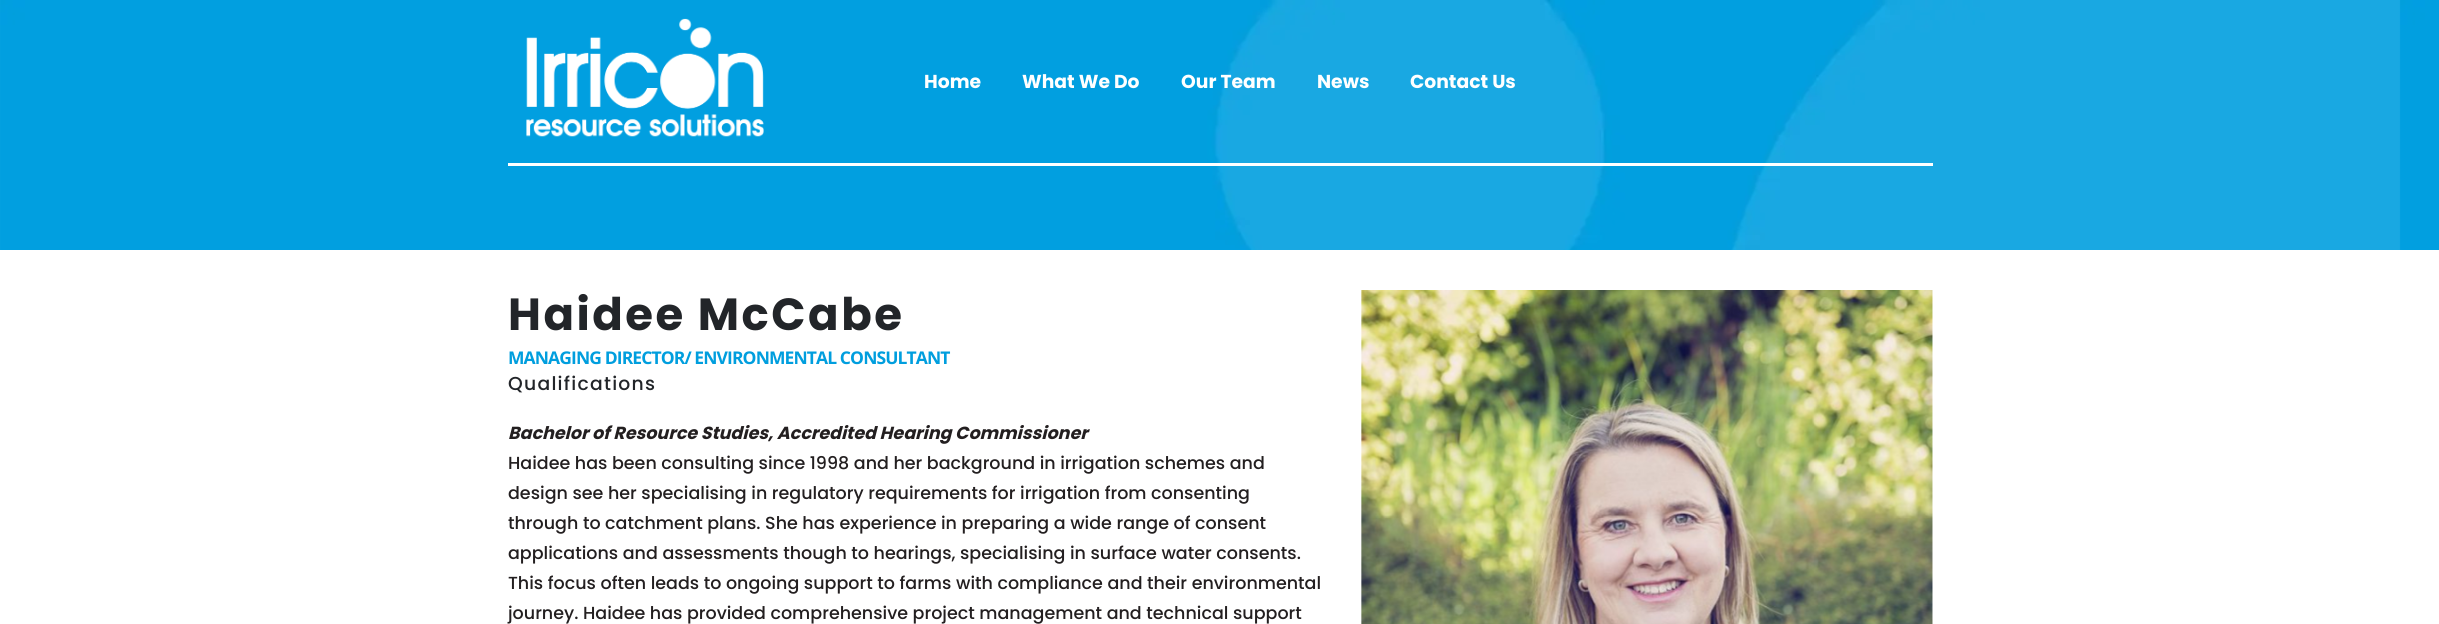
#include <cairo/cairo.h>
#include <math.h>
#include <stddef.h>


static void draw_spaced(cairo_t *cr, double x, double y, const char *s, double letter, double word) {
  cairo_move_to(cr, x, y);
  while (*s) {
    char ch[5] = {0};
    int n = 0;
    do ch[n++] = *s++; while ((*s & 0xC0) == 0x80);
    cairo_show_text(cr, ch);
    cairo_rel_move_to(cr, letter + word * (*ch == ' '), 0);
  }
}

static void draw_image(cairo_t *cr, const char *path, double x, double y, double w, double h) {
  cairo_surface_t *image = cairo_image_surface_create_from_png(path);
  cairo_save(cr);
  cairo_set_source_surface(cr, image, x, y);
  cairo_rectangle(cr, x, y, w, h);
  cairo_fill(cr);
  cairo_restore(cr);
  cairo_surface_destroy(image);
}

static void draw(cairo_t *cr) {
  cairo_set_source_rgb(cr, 1, 1, 1);
  cairo_paint(cr);
  draw_image(cr, "images/1.png", 0, 0, 2439, 250);
  cairo_set_source_rgb(cr, 1, 1, 1);
  cairo_rectangle(cr, 508, 163, 1425, 3);
  cairo_fill(cr);
  draw_image(cr, "images/2.png", 526, 18, 238, 119);
  draw_image(cr, "images/3.png", 1361, 290, 572, 334);
  cairo_select_font_face(cr, "Poppins", CAIRO_FONT_SLANT_NORMAL, CAIRO_FONT_WEIGHT_BOLD);
  cairo_set_font_size(cr, 18.75);
  cairo_move_to(cr, 924, 88);
  cairo_show_text(cr, "Home");
  cairo_move_to(cr, 1022, 88);
  cairo_show_text(cr, "What We Do");
  cairo_move_to(cr, 1181, 88);
  cairo_show_text(cr, "Our Team");
  cairo_move_to(cr, 1317, 88);
  cairo_show_text(cr, "News");
  cairo_move_to(cr, 1410, 88);
  cairo_show_text(cr, "Contact Us");
  cairo_set_font_size(cr, 45);
  cairo_set_source_rgb(cr, 34 / 255.0, 37 / 255.0, 41 / 255.0);
  draw_spaced(cr, 508, 330, "Haidee McCabe", 2.5, 0);
  cairo_select_font_face(cr, "Open Sans", CAIRO_FONT_SLANT_NORMAL, CAIRO_FONT_WEIGHT_BOLD);
  cairo_set_font_size(cr, 17.5);
  cairo_set_source_rgb(cr, 0, 158 / 255.0, 222 / 255.0);
  draw_spaced(cr, 508, 364, "MANAGING DIRECTOR/ ENVIRONMENTAL CONSULTANT", -0.9, 0);
  cairo_select_font_face(cr, "Poppins Medium", CAIRO_FONT_SLANT_NORMAL, CAIRO_FONT_WEIGHT_NORMAL);
  cairo_set_font_size(cr, 18.75);
  cairo_set_source_rgb(cr, 34 / 255.0, 37 / 255.0, 41 / 255.0);
  draw_spaced(cr, 508, 390, "Qualifications", 1.25, 0);
  cairo_select_font_face(cr, "Poppins", CAIRO_FONT_SLANT_ITALIC, CAIRO_FONT_WEIGHT_BOLD);
  cairo_set_font_size(cr, 17.5);
  cairo_set_source_rgb(cr, 35 / 255.0, 31 / 255.0, 32 / 255.0);
  cairo_move_to(cr, 508, 439);
  cairo_show_text(cr, "Bachelor of Resource Studies, Accredited Hearing Commissioner");
  cairo_select_font_face(cr, "Poppins Medium", CAIRO_FONT_SLANT_NORMAL, CAIRO_FONT_WEIGHT_NORMAL);
  cairo_move_to(cr, 508, 469);
  cairo_show_text(cr, "Haidee has been consulting since 1998 and her background in irrigation schemes and");
  cairo_move_to(cr, 508, 499);
  cairo_show_text(cr, "design see her specialising in regulatory requirements for irrigation from consenting");
  cairo_move_to(cr, 508, 529);
  cairo_show_text(cr, "through to catchment plans. She has experience in preparing a wide range of consent");
  cairo_move_to(cr, 508, 559);
  cairo_show_text(cr, "applications and assessments though to hearings, specialising in surface water consents.");
  cairo_move_to(cr, 508, 589);
  cairo_show_text(cr, "This focus often leads to ongoing support to farms with compliance and their environmental");
  cairo_move_to(cr, 508, 619);
  cairo_show_text(cr, "journey. Haidee has provided comprehensive project management and technical support");
}

int main(void) {
  cairo_surface_t *surface = cairo_image_surface_create(CAIRO_FORMAT_RGB24, 2439, 624);
  cairo_t *cr = cairo_create(surface);
  cairo_font_options_t *options = cairo_font_options_create();
  cairo_font_options_set_hint_metrics(options, CAIRO_HINT_METRICS_OFF);
  cairo_font_options_set_hint_style(options, CAIRO_HINT_STYLE_NONE);
  cairo_set_font_options(cr, options);
  cairo_set_miter_limit(cr, 4);
  draw(cr);
  cairo_surface_write_to_png(surface, "out.png");
  cairo_font_options_destroy(options);
  cairo_destroy(cr);
  cairo_surface_destroy(surface);
  return 0;
}
